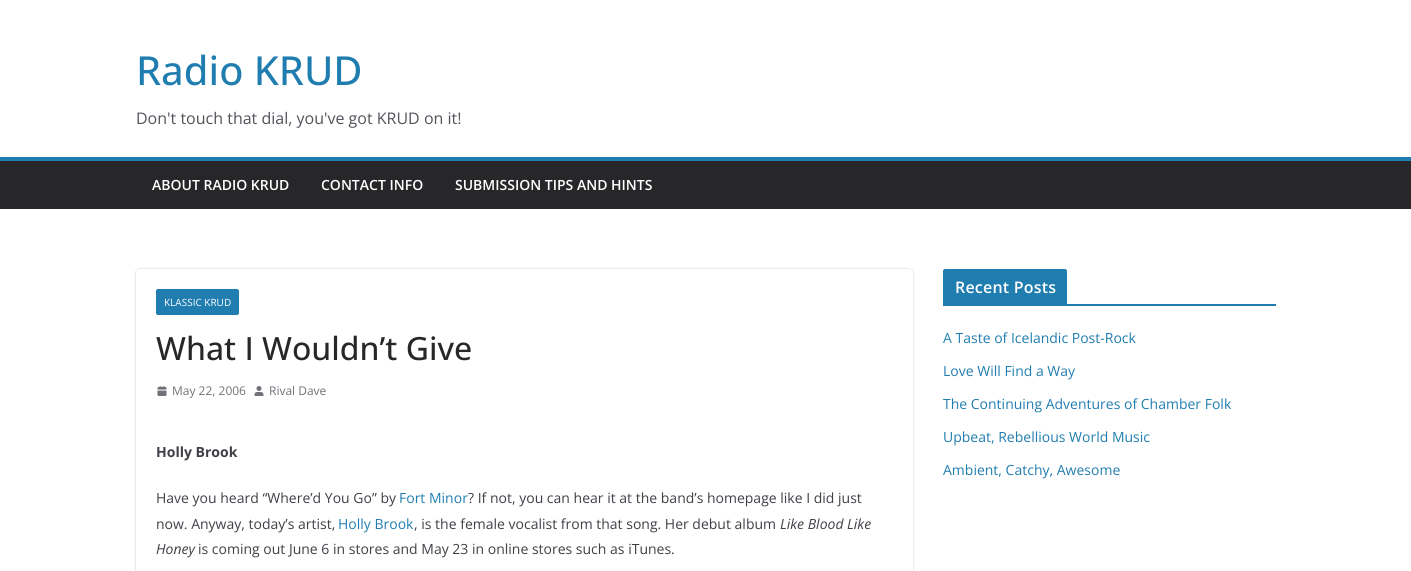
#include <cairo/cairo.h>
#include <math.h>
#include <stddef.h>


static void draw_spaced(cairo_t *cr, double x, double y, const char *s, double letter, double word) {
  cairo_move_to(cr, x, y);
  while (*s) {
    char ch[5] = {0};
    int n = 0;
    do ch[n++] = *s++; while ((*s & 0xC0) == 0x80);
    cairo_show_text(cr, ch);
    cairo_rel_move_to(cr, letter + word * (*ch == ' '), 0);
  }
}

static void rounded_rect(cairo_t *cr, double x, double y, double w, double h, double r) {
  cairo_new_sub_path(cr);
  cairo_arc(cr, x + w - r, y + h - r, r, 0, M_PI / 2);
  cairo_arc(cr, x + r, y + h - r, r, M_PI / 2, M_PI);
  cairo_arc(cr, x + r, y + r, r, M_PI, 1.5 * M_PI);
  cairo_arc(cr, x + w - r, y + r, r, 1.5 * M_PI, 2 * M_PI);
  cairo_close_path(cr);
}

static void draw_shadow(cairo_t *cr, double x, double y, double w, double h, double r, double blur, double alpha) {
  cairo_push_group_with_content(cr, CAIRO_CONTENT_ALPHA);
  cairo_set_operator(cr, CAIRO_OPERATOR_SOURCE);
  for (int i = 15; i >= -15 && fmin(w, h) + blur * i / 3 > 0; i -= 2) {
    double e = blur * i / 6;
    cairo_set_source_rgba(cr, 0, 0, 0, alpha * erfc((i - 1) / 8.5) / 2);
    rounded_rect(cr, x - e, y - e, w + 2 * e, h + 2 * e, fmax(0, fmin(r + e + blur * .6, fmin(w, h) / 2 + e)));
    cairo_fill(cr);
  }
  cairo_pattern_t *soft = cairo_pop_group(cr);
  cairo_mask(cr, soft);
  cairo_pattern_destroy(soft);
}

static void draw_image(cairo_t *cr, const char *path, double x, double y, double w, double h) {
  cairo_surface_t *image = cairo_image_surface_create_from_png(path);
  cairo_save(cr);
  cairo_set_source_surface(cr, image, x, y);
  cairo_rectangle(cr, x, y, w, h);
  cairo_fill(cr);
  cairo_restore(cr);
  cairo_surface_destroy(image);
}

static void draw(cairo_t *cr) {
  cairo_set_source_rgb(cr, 1, 1, 1);
  cairo_paint(cr);
  cairo_set_source_rgb(cr, 39 / 255.0, 39 / 255.0, 42 / 255.0);
  cairo_rectangle(cr, 0, 161, 1411, 48);
  cairo_fill(cr);
  cairo_set_source_rgb(cr, 32 / 255.0, 125 / 255.0, 175 / 255.0);
  cairo_rectangle(cr, 0, 157, 1411, 4);
  cairo_fill(cr);
  cairo_save(cr);
  cairo_set_fill_rule(cr, CAIRO_FILL_RULE_EVEN_ODD);
  cairo_new_path(cr);
  cairo_move_to(cr, 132, 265);
  cairo_line_to(cr, 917, 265);
  cairo_line_to(cr, 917, 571);
  cairo_line_to(cr, 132, 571);
  cairo_close_path(cr);
  cairo_move_to(cr, 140, 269);
  cairo_line_to(cr, 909, 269);
  cairo_curve_to(cr, 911, 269, 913, 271, 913, 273);
  cairo_line_to(cr, 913, 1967);
  cairo_curve_to(cr, 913, 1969, 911, 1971, 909, 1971);
  cairo_line_to(cr, 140, 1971);
  cairo_curve_to(cr, 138, 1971, 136, 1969, 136, 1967);
  cairo_line_to(cr, 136, 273);
  cairo_curve_to(cr, 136, 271, 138, 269, 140, 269);
  cairo_close_path(cr);
  cairo_clip(cr);
  cairo_set_source_rgb(cr, 0, 0, 0);
  draw_shadow(cr, 136, 269, 777, 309, 4, 1, 0.24);
  cairo_restore(cr);
  rounded_rect(cr, 156, 289, 83, 26, 2);
  cairo_fill(cr);
  draw_image(cr, "images/1.png", 157, 386, 10, 10);
  draw_image(cr, "images/2.png", 254, 386, 10, 10);
  cairo_rectangle(cr, 943, 304, 333, 2);
  cairo_fill(cr);
  cairo_new_path(cr);
  cairo_move_to(cr, 945, 269);
  cairo_line_to(cr, 1065, 269);
  cairo_curve_to(cr, 1066, 269, 1067, 270, 1067, 271);
  cairo_line_to(cr, 1067, 304);
  cairo_line_to(cr, 943, 304);
  cairo_line_to(cr, 943, 271);
  cairo_curve_to(cr, 943, 270, 944, 269, 945, 269);
  cairo_close_path(cr);
  cairo_fill(cr);
  cairo_select_font_face(cr, "Open Sans Medium", CAIRO_FONT_SLANT_NORMAL, CAIRO_FONT_WEIGHT_NORMAL);
  cairo_set_font_size(cr, 40);
  cairo_move_to(cr, 136, 85);
  cairo_show_text(cr, "Radio KRUD");
  cairo_select_font_face(cr, "Open Sans", CAIRO_FONT_SLANT_NORMAL, CAIRO_FONT_WEIGHT_NORMAL);
  cairo_set_font_size(cr, 16);
  cairo_set_source_rgb(cr, 82 / 255.0, 82 / 255.0, 91 / 255.0);
  cairo_move_to(cr, 136, 124);
  cairo_show_text(cr, "Don't touch that dial, you've got KRUD on it!");
  cairo_select_font_face(cr, "Open Sans SemiBold", CAIRO_FONT_SLANT_NORMAL, CAIRO_FONT_WEIGHT_NORMAL);
  cairo_set_font_size(cr, 14);
  cairo_set_source_rgb(cr, 1, 1, 1);
  cairo_move_to(cr, 152, 190);
  cairo_show_text(cr, "ABOUT RADIO KRUD");
  cairo_move_to(cr, 321, 190);
  cairo_show_text(cr, "CONTACT INFO");
  cairo_move_to(cr, 455, 190);
  cairo_show_text(cr, "SUBMISSION TIPS AND HINTS");
  cairo_select_font_face(cr, "Open Sans", CAIRO_FONT_SLANT_NORMAL, CAIRO_FONT_WEIGHT_NORMAL);
  cairo_set_font_size(cr, 10);
  cairo_move_to(cr, 164, 306);
  cairo_show_text(cr, "KLASSIC KRUD");
  cairo_select_font_face(cr, "Open Sans Medium", CAIRO_FONT_SLANT_NORMAL, CAIRO_FONT_WEIGHT_NORMAL);
  cairo_set_font_size(cr, 32);
  cairo_set_source_rgb(cr, 39 / 255.0, 39 / 255.0, 42 / 255.0);
  cairo_move_to(cr, 156, 360);
  cairo_show_text(cr, "What I Wouldn’t Give");
  cairo_select_font_face(cr, "Open Sans", CAIRO_FONT_SLANT_NORMAL, CAIRO_FONT_WEIGHT_NORMAL);
  cairo_set_font_size(cr, 12);
  cairo_set_source_rgb(cr, 113 / 255.0, 113 / 255.0, 122 / 255.0);
  cairo_move_to(cr, 172, 395);
  cairo_show_text(cr, "May 22, 2006");
  cairo_move_to(cr, 269, 395);
  cairo_show_text(cr, "Rival Dave");
  cairo_select_font_face(cr, "Open Sans", CAIRO_FONT_SLANT_NORMAL, CAIRO_FONT_WEIGHT_BOLD);
  cairo_set_font_size(cr, 14);
  cairo_set_source_rgb(cr, 63 / 255.0, 63 / 255.0, 70 / 255.0);
  cairo_move_to(cr, 156, 457);
  cairo_show_text(cr, "Holly Brook");
  cairo_select_font_face(cr, "Open Sans", CAIRO_FONT_SLANT_NORMAL, CAIRO_FONT_WEIGHT_NORMAL);
  cairo_move_to(cr, 156, 503);
  cairo_show_text(cr, "Have you heard “Where’d You Go” by");
  cairo_set_source_rgb(cr, 32 / 255.0, 125 / 255.0, 175 / 255.0);
  cairo_move_to(cr, 399, 503);
  cairo_show_text(cr, "Fort Minor");
  cairo_set_source_rgb(cr, 63 / 255.0, 63 / 255.0, 70 / 255.0);
  cairo_move_to(cr, 468, 503);
  cairo_show_text(cr, "? If not, you can hear it at the band’s homepage like I did just");
  cairo_move_to(cr, 156, 529);
  cairo_show_text(cr, "now. Anyway, today’s artist,");
  cairo_set_source_rgb(cr, 32 / 255.0, 125 / 255.0, 175 / 255.0);
  cairo_move_to(cr, 338, 529);
  cairo_show_text(cr, "Holly Brook");
  cairo_set_source_rgb(cr, 63 / 255.0, 63 / 255.0, 70 / 255.0);
  cairo_move_to(cr, 414, 529);
  cairo_show_text(cr, ", is the female vocalist from that song. Her debut album");
  cairo_select_font_face(cr, "Open Sans", CAIRO_FONT_SLANT_ITALIC, CAIRO_FONT_WEIGHT_NORMAL);
  cairo_move_to(cr, 780, 529);
  cairo_show_text(cr, "Like Blood Like");
  cairo_move_to(cr, 156, 554);
  cairo_show_text(cr, "Honey");
  cairo_select_font_face(cr, "Open Sans", CAIRO_FONT_SLANT_NORMAL, CAIRO_FONT_WEIGHT_NORMAL);
  cairo_move_to(cr, 198, 554);
  cairo_show_text(cr, "is coming out June 6 in stores and May 23 in online stores such as iTunes.");
  cairo_select_font_face(cr, "Open Sans SemiBold", CAIRO_FONT_SLANT_NORMAL, CAIRO_FONT_WEIGHT_NORMAL);
  cairo_set_font_size(cr, 16);
  cairo_set_source_rgb(cr, 1, 1, 1);
  draw_spaced(cr, 955, 293, "Recent Posts", 0.2, 0);
  cairo_select_font_face(cr, "Open Sans", CAIRO_FONT_SLANT_NORMAL, CAIRO_FONT_WEIGHT_NORMAL);
  cairo_set_font_size(cr, 14);
  cairo_set_source_rgb(cr, 32 / 255.0, 125 / 255.0, 175 / 255.0);
  cairo_move_to(cr, 943, 343);
  cairo_show_text(cr, "A Taste of Icelandic Post-Rock");
  cairo_move_to(cr, 943, 376);
  cairo_show_text(cr, "Love Will Find a Way");
  cairo_move_to(cr, 943, 409);
  cairo_show_text(cr, "The Continuing Adventures of Chamber Folk");
  cairo_move_to(cr, 943, 442);
  cairo_show_text(cr, "Upbeat, Rebellious World Music");
  cairo_move_to(cr, 943, 475);
  cairo_show_text(cr, "Ambient, Catchy, Awesome");
}

int main(void) {
  cairo_surface_t *surface = cairo_image_surface_create(CAIRO_FORMAT_RGB24, 1411, 571);
  cairo_t *cr = cairo_create(surface);
  cairo_font_options_t *options = cairo_font_options_create();
  cairo_font_options_set_hint_metrics(options, CAIRO_HINT_METRICS_OFF);
  cairo_font_options_set_hint_style(options, CAIRO_HINT_STYLE_NONE);
  cairo_set_font_options(cr, options);
  cairo_set_miter_limit(cr, 4);
  draw(cr);
  cairo_surface_write_to_png(surface, "out.png");
  cairo_font_options_destroy(options);
  cairo_destroy(cr);
  cairo_surface_destroy(surface);
  return 0;
}
